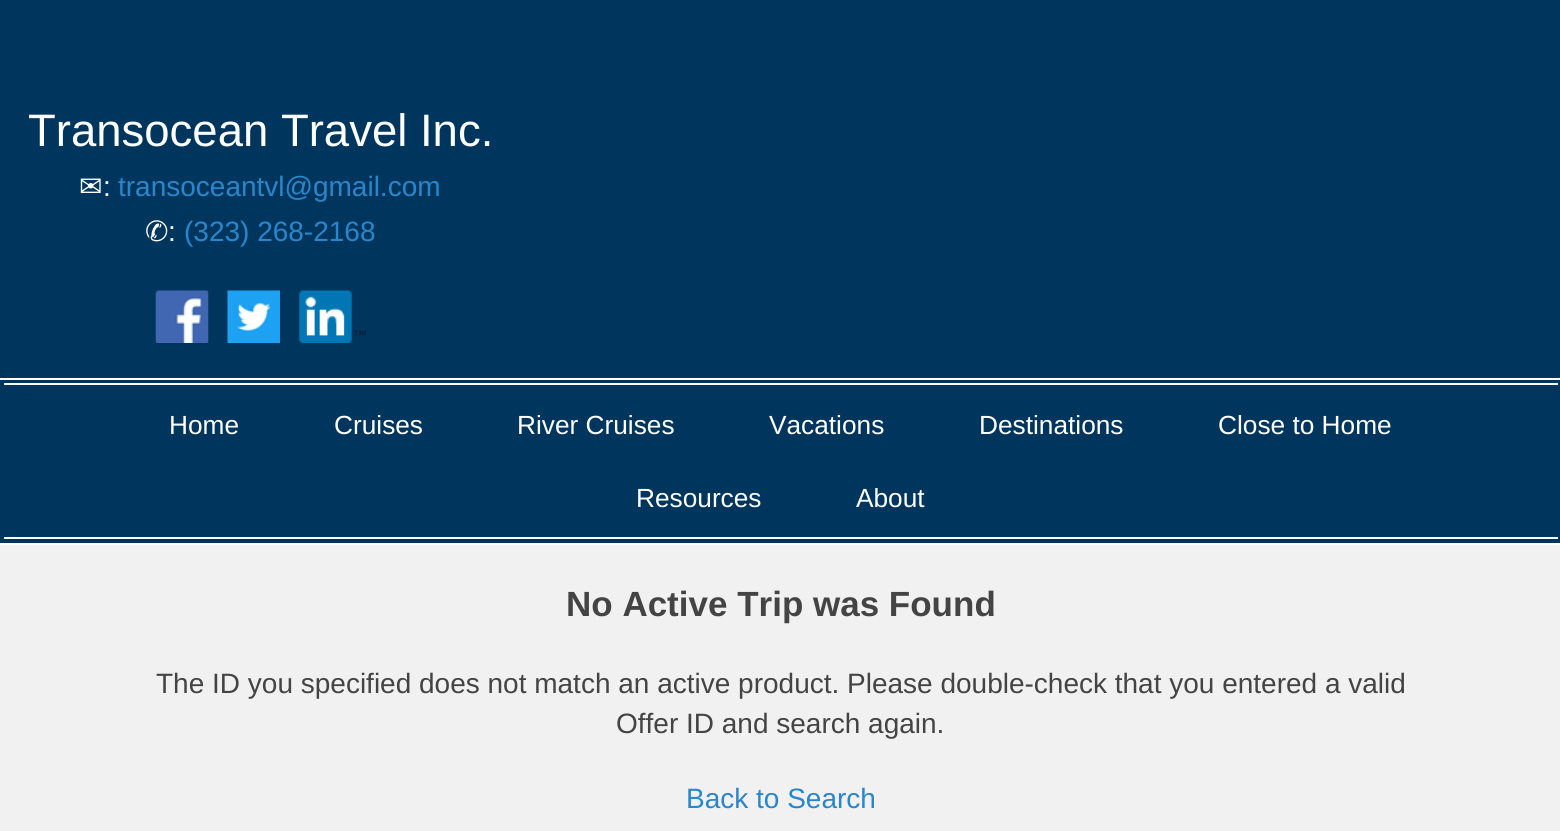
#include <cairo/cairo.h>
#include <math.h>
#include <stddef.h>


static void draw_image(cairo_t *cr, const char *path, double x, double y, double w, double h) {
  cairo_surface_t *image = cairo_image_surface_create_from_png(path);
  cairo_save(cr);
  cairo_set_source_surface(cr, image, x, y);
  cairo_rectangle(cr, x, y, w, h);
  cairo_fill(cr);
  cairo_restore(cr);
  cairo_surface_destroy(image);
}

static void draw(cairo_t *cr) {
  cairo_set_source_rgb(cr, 241 / 255.0, 241 / 255.0, 241 / 255.0);
  cairo_paint(cr);
  cairo_set_source_rgb(cr, 0, 54 / 255.0, 93 / 255.0);
  cairo_rectangle(cr, 0, 0, 1560, 378);
  cairo_fill(cr);
  draw_image(cr, "images/1.png", 155, 290, 54, 53);
  draw_image(cr, "images/2.png", 227, 290, 53, 53);
  draw_image(cr, "images/3.png", 299, 290, 67, 53);
  cairo_rectangle(cr, 0, 380, 1560, 163);
  cairo_fill(cr);
  cairo_set_source_rgb(cr, 1, 1, 1);
  cairo_rectangle(cr, 0, 378, 1560, 2);
  cairo_fill(cr);
  cairo_rectangle(cr, 0, 543, 1560, 2);
  cairo_fill(cr);
  cairo_rectangle(cr, 4, 383, 1554, 2);
  cairo_fill(cr);
  cairo_rectangle(cr, 4, 537, 1554, 2);
  cairo_fill(cr);
  cairo_select_font_face(cr, "Liberation Sans", CAIRO_FONT_SLANT_NORMAL, CAIRO_FONT_WEIGHT_NORMAL);
  cairo_set_font_size(cr, 45.5);
  cairo_move_to(cr, 28, 146);
  cairo_show_text(cr, "Transocean Travel Inc.");
  cairo_select_font_face(cr, "DejaVu Sans", CAIRO_FONT_SLANT_NORMAL, CAIRO_FONT_WEIGHT_NORMAL);
  cairo_set_font_size(cr, 28);
  cairo_move_to(cr, 79, 196);
  cairo_show_text(cr, "✉");
  cairo_select_font_face(cr, "Liberation Sans", CAIRO_FONT_SLANT_NORMAL, CAIRO_FONT_WEIGHT_NORMAL);
  cairo_move_to(cr, 103, 196);
  cairo_show_text(cr, ":");
  cairo_set_source_rgb(cr, 41 / 255.0, 134 / 255.0, 204 / 255.0);
  cairo_move_to(cr, 118, 196);
  cairo_show_text(cr, "transoceantvl@gmail.com");
  cairo_select_font_face(cr, "DejaVu Sans", CAIRO_FONT_SLANT_NORMAL, CAIRO_FONT_WEIGHT_NORMAL);
  cairo_set_source_rgb(cr, 1, 1, 1);
  cairo_move_to(cr, 145, 241);
  cairo_show_text(cr, "✆");
  cairo_select_font_face(cr, "Liberation Sans", CAIRO_FONT_SLANT_NORMAL, CAIRO_FONT_WEIGHT_NORMAL);
  cairo_move_to(cr, 168, 241);
  cairo_show_text(cr, ":");
  cairo_set_source_rgb(cr, 41 / 255.0, 134 / 255.0, 204 / 255.0);
  cairo_move_to(cr, 184, 241);
  cairo_show_text(cr, "(323) 268-2168");
  cairo_set_font_size(cr, 26.25);
  cairo_set_source_rgb(cr, 1, 1, 1);
  cairo_move_to(cr, 169, 434);
  cairo_show_text(cr, "Home");
  cairo_move_to(cr, 334, 434);
  cairo_show_text(cr, "Cruises");
  cairo_move_to(cr, 517, 434);
  cairo_show_text(cr, "River Cruises");
  cairo_move_to(cr, 769, 434);
  cairo_show_text(cr, "Vacations");
  cairo_move_to(cr, 979, 434);
  cairo_show_text(cr, "Destinations");
  cairo_move_to(cr, 1218, 434);
  cairo_show_text(cr, "Close to Home");
  cairo_move_to(cr, 636, 507);
  cairo_show_text(cr, "Resources");
  cairo_move_to(cr, 856, 507);
  cairo_show_text(cr, "About");
  cairo_select_font_face(cr, "Liberation Sans", CAIRO_FONT_SLANT_NORMAL, CAIRO_FONT_WEIGHT_BOLD);
  cairo_set_font_size(cr, 35);
  cairo_set_source_rgb(cr, 68 / 255.0, 68 / 255.0, 68 / 255.0);
  cairo_move_to(cr, 566, 616);
  cairo_show_text(cr, "No Active Trip was Found");
  cairo_select_font_face(cr, "Liberation Sans", CAIRO_FONT_SLANT_NORMAL, CAIRO_FONT_WEIGHT_NORMAL);
  cairo_set_font_size(cr, 28);
  cairo_move_to(cr, 156, 693);
  cairo_show_text(cr, "The ID you specified does not match an active product. Please double-check that you entered a valid");
  cairo_move_to(cr, 616, 733);
  cairo_show_text(cr, "Offer ID and search again.");
  cairo_set_source_rgb(cr, 41 / 255.0, 134 / 255.0, 204 / 255.0);
  cairo_move_to(cr, 686, 808);
  cairo_show_text(cr, "Back to Search");
}

int main(void) {
  cairo_surface_t *surface = cairo_image_surface_create(CAIRO_FORMAT_RGB24, 1560, 831);
  cairo_t *cr = cairo_create(surface);
  cairo_font_options_t *options = cairo_font_options_create();
  cairo_font_options_set_hint_metrics(options, CAIRO_HINT_METRICS_OFF);
  cairo_font_options_set_hint_style(options, CAIRO_HINT_STYLE_NONE);
  cairo_set_font_options(cr, options);
  cairo_set_miter_limit(cr, 4);
  draw(cr);
  cairo_surface_write_to_png(surface, "out.png");
  cairo_font_options_destroy(options);
  cairo_destroy(cr);
  cairo_surface_destroy(surface);
  return 0;
}
